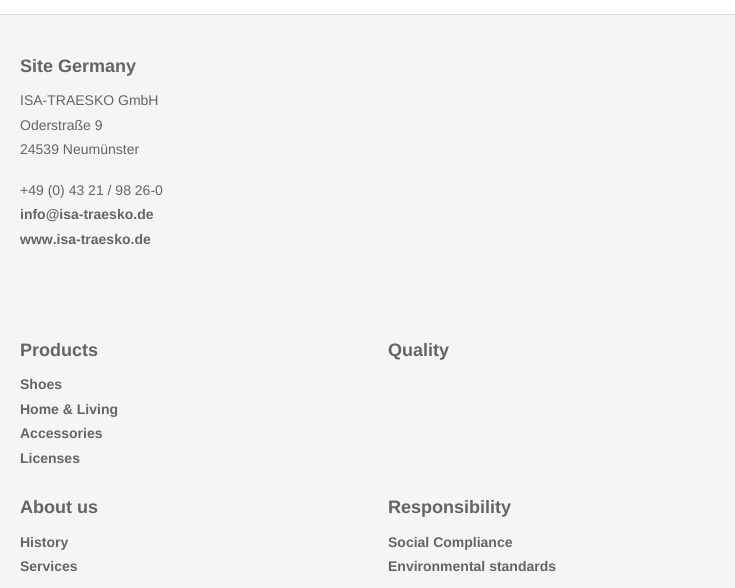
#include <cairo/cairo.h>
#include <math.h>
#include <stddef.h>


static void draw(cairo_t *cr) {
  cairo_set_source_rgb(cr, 1, 1, 1);
  cairo_paint(cr);
  cairo_set_source_rgb(cr, 245 / 255.0, 245 / 255.0, 245 / 255.0);
  cairo_rectangle(cr, 0, 15, 735, 573);
  cairo_fill(cr);
  cairo_set_source_rgb(cr, 219 / 255.0, 219 / 255.0, 219 / 255.0);
  cairo_rectangle(cr, 0, 14, 735, 1);
  cairo_fill(cr);
  cairo_select_font_face(cr, "Liberation Sans", CAIRO_FONT_SLANT_NORMAL, CAIRO_FONT_WEIGHT_BOLD);
  cairo_set_font_size(cr, 18);
  cairo_set_source_rgb(cr, 99 / 255.0, 100 / 255.0, 99 / 255.0);
  cairo_move_to(cr, 20, 72);
  cairo_show_text(cr, "Site Germany");
  cairo_select_font_face(cr, "Liberation Sans", CAIRO_FONT_SLANT_NORMAL, CAIRO_FONT_WEIGHT_NORMAL);
  cairo_set_font_size(cr, 14);
  cairo_move_to(cr, 20, 105);
  cairo_show_text(cr, "ISA-TRAESKO GmbH");
  cairo_move_to(cr, 20, 130);
  cairo_show_text(cr, "Oderstraße 9");
  cairo_move_to(cr, 20, 154);
  cairo_show_text(cr, "24539 Neumünster");
  cairo_move_to(cr, 20, 195);
  cairo_show_text(cr, "+49 (0) 43 21 / 98 26-0");
  cairo_select_font_face(cr, "Liberation Sans", CAIRO_FONT_SLANT_NORMAL, CAIRO_FONT_WEIGHT_BOLD);
  cairo_move_to(cr, 20, 219);
  cairo_show_text(cr, "info@isa-traesko.de");
  cairo_move_to(cr, 20, 244);
  cairo_show_text(cr, "www.isa-traesko.de");
  cairo_set_font_size(cr, 18);
  cairo_move_to(cr, 20, 356);
  cairo_show_text(cr, "Products");
  cairo_set_font_size(cr, 14);
  cairo_move_to(cr, 20, 389);
  cairo_show_text(cr, "Shoes");
  cairo_move_to(cr, 20, 414);
  cairo_show_text(cr, "Home & Living");
  cairo_move_to(cr, 20, 438);
  cairo_show_text(cr, "Accessories");
  cairo_move_to(cr, 20, 463);
  cairo_show_text(cr, "Licenses");
  cairo_set_font_size(cr, 18);
  cairo_move_to(cr, 388, 356);
  cairo_show_text(cr, "Quality");
  cairo_move_to(cr, 20, 513);
  cairo_show_text(cr, "About us");
  cairo_set_font_size(cr, 14);
  cairo_move_to(cr, 20, 547);
  cairo_show_text(cr, "History");
  cairo_move_to(cr, 20, 571);
  cairo_show_text(cr, "Services");
  cairo_set_font_size(cr, 18);
  cairo_move_to(cr, 388, 513);
  cairo_show_text(cr, "Responsibility");
  cairo_set_font_size(cr, 14);
  cairo_move_to(cr, 388, 547);
  cairo_show_text(cr, "Social Compliance");
  cairo_move_to(cr, 388, 571);
  cairo_show_text(cr, "Environmental standards");
}

int main(void) {
  cairo_surface_t *surface = cairo_image_surface_create(CAIRO_FORMAT_RGB24, 735, 588);
  cairo_t *cr = cairo_create(surface);
  cairo_font_options_t *options = cairo_font_options_create();
  cairo_font_options_set_hint_metrics(options, CAIRO_HINT_METRICS_OFF);
  cairo_font_options_set_hint_style(options, CAIRO_HINT_STYLE_NONE);
  cairo_set_font_options(cr, options);
  cairo_set_miter_limit(cr, 4);
  draw(cr);
  cairo_surface_write_to_png(surface, "out.png");
  cairo_font_options_destroy(options);
  cairo_destroy(cr);
  cairo_surface_destroy(surface);
  return 0;
}
